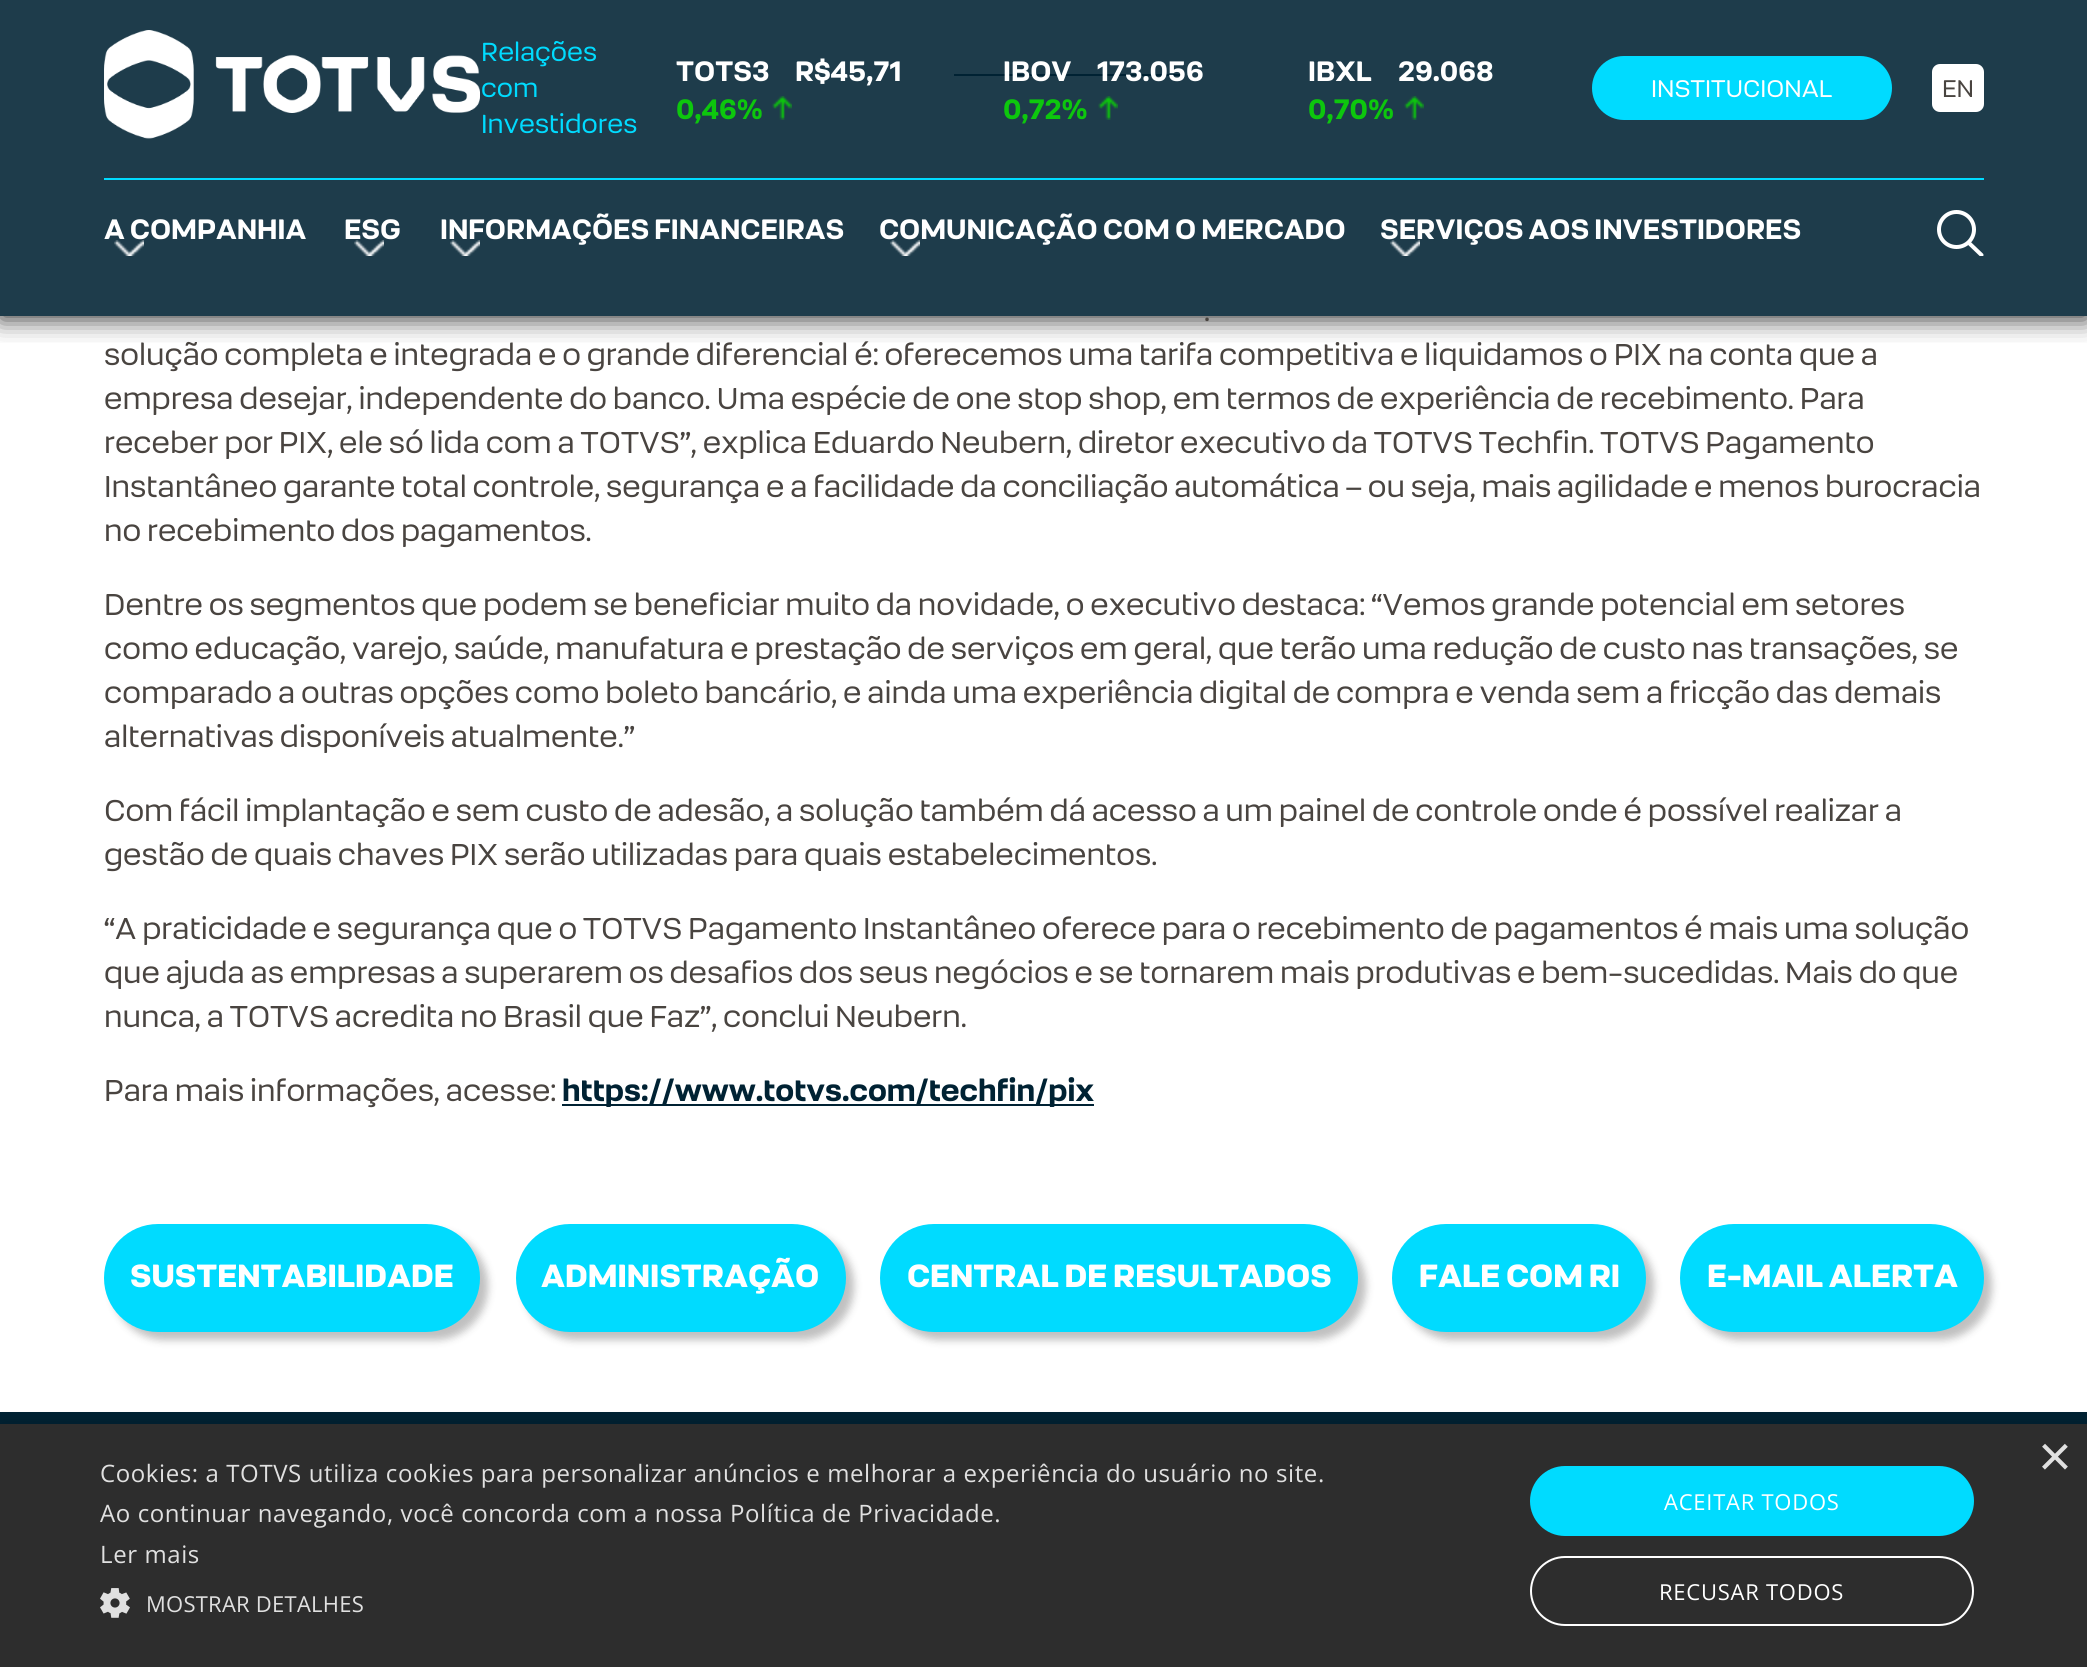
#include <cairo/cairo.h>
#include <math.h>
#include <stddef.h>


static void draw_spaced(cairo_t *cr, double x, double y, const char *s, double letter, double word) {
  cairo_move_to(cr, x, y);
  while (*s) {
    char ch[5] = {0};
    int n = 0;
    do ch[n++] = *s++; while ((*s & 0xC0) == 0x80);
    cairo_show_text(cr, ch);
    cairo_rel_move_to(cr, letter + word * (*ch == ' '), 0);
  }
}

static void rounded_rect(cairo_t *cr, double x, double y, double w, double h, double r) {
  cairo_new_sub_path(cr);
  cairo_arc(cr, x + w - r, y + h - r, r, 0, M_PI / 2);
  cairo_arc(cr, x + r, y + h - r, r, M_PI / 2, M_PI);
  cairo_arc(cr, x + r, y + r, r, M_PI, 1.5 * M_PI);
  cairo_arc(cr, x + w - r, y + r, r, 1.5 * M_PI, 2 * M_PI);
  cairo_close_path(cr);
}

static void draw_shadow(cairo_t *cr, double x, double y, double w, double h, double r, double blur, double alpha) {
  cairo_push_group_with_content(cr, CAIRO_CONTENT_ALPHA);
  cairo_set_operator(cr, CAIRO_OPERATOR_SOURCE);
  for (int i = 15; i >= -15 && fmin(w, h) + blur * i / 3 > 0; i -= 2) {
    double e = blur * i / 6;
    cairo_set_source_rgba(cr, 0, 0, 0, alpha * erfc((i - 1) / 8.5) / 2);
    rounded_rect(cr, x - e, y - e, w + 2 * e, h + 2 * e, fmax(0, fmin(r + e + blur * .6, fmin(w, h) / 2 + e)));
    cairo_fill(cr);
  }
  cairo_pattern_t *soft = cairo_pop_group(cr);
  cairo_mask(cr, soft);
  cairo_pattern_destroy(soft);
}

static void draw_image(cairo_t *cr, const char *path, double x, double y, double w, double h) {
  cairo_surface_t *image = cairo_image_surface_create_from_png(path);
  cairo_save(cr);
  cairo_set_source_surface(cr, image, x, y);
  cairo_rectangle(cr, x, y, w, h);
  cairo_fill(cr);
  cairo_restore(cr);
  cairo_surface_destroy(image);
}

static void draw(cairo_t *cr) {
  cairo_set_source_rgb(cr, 1, 1, 1);
  cairo_paint(cr);
  cairo_set_source_rgb(cr, 0, 34 / 255.0, 51 / 255.0);
  cairo_rectangle(cr, 954, 74, 228, 2);
  cairo_fill(cr);
  cairo_save(cr);
  cairo_rectangle(cr, 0, 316, 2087, 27);
  cairo_clip(cr);
  cairo_set_source_rgb(cr, 0, 0, 0);
  draw_shadow(cr, 0, 4, 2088, 316, 0, 12, 0.75);
  cairo_restore(cr);
  cairo_set_source_rgba(cr, 0, 34 / 255.0, 51 / 255.0, 0.88);
  cairo_rectangle(cr, 0, 0, 2087, 316);
  cairo_fill(cr);
  cairo_set_source_rgb(cr, 0, 219 / 255.0, 1);
  cairo_rectangle(cr, 104, 178, 1880, 2);
  cairo_fill(cr);
  draw_image(cr, "images/1.png", 104, 30, 376, 109);
  draw_image(cr, "images/2.png", 772, 96, 20, 24);
  draw_image(cr, "images/3.png", 1098, 96, 20, 24);
  draw_image(cr, "images/4.png", 1404, 96, 20, 24);
  rounded_rect(cr, 1592, 56, 300, 64, 32);
  cairo_fill(cr);
  cairo_set_source_rgb(cr, 1, 1, 1);
  rounded_rect(cr, 1932, 64, 52, 48, 8);
  cairo_fill(cr);
  draw_image(cr, "images/5.png", 114, 240, 30, 16);
  draw_image(cr, "images/6.png", 354, 240, 30, 16);
  cairo_arc(cr, 1956.5, 229.5, 17.5, 0, 2 * M_PI);
  cairo_set_line_width(cr, 4);
  cairo_stroke(cr);
  cairo_save(cr);
  cairo_rectangle(cr, 1936, 210, 48, 46);
  cairo_clip(cr);
  cairo_new_path(cr);
  cairo_move_to(cr, 1970, 244);
  cairo_line_to(cr, 1981.5, 255);
  cairo_set_line_cap(cr, CAIRO_LINE_CAP_ROUND);
  cairo_stroke(cr);
  cairo_restore(cr);
  cairo_set_source_rgb(cr, 0, 34 / 255.0, 51 / 255.0);
  cairo_rectangle(cr, 562, 1104, 532, 2);
  cairo_fill(cr);
  cairo_set_source_rgb(cr, 0, 0, 0);
  draw_shadow(cr, 112, 1232, 376, 108, 54, 4, 0.25);
  cairo_set_source_rgb(cr, 0, 219 / 255.0, 1);
  rounded_rect(cr, 104, 1224, 376, 108, 54);
  cairo_fill(cr);
  cairo_set_source_rgb(cr, 0, 0, 0);
  draw_shadow(cr, 524, 1232, 330, 108, 54, 4, 0.25);
  cairo_set_source_rgb(cr, 0, 219 / 255.0, 1);
  rounded_rect(cr, 516, 1224, 330, 108, 54);
  cairo_fill(cr);
  cairo_set_source_rgb(cr, 0, 0, 0);
  draw_shadow(cr, 888, 1232, 478, 108, 54, 4, 0.25);
  cairo_set_source_rgb(cr, 0, 219 / 255.0, 1);
  rounded_rect(cr, 880, 1224, 478, 108, 54);
  cairo_fill(cr);
  cairo_set_source_rgb(cr, 0, 0, 0);
  draw_shadow(cr, 1400, 1232, 254, 108, 54, 4, 0.25);
  cairo_set_source_rgb(cr, 0, 219 / 255.0, 1);
  rounded_rect(cr, 1392, 1224, 254, 108, 54);
  cairo_fill(cr);
  cairo_set_source_rgb(cr, 0, 0, 0);
  draw_shadow(cr, 1688, 1232, 304, 108, 54, 4, 0.25);
  cairo_set_source_rgb(cr, 0, 219 / 255.0, 1);
  rounded_rect(cr, 1680, 1224, 304, 108, 54);
  cairo_fill(cr);
  cairo_set_source_rgb(cr, 0, 34 / 255.0, 51 / 255.0);
  cairo_rectangle(cr, 0, 1412, 2087, 12);
  cairo_fill(cr);
  cairo_set_source_rgb(cr, 0, 0, 0);
  draw_shadow(cr, 2, 1428, 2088, 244, 0, 8, 0.35);
  cairo_set_source_rgb(cr, 45 / 255.0, 45 / 255.0, 45 / 255.0);
  cairo_rectangle(cr, 0, 1424, 2087, 243);
  cairo_fill(cr);
  draw_image(cr, "images/8.png", 100, 1588, 30, 30);
  cairo_set_source_rgb(cr, 0, 219 / 255.0, 1);
  rounded_rect(cr, 1530, 1466, 444, 70, 35);
  cairo_fill(cr);
  rounded_rect(cr, 1531, 1557, 442, 68, 34);
  cairo_set_source_rgb(cr, 1, 1, 1);
  cairo_set_line_width(cr, 2);
  cairo_stroke(cr);
  cairo_select_font_face(cr, "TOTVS", CAIRO_FONT_SLANT_NORMAL, CAIRO_FONT_WEIGHT_NORMAL);
  cairo_set_font_size(cr, 26);
  cairo_set_source_rgb(cr, 0, 219 / 255.0, 1);
  cairo_move_to(cr, 481, 61);
  cairo_show_text(cr, "Relações");
  cairo_move_to(cr, 481, 97);
  cairo_show_text(cr, "com");
  cairo_move_to(cr, 481, 133);
  cairo_show_text(cr, "Investidores");
  cairo_select_font_face(cr, "TOTVS", CAIRO_FONT_SLANT_NORMAL, CAIRO_FONT_WEIGHT_BOLD);
  cairo_set_font_size(cr, 28);
  cairo_set_source_rgb(cr, 1, 1, 1);
  cairo_move_to(cr, 676, 81);
  cairo_show_text(cr, "TOTS3");
  cairo_move_to(cr, 795, 81);
  cairo_show_text(cr, "R$45,71");
  cairo_set_source_rgb(cr, 13 / 255.0, 199 / 255.0, 13 / 255.0);
  cairo_move_to(cr, 676, 119);
  cairo_show_text(cr, "0,46%");
  cairo_set_source_rgb(cr, 1, 1, 1);
  cairo_move_to(cr, 1003, 81);
  cairo_show_text(cr, "IBOV");
  cairo_move_to(cr, 1097, 81);
  cairo_show_text(cr, "173.056");
  cairo_set_source_rgb(cr, 13 / 255.0, 199 / 255.0, 13 / 255.0);
  cairo_move_to(cr, 1003, 119);
  cairo_show_text(cr, "0,72%");
  cairo_set_source_rgb(cr, 1, 1, 1);
  cairo_move_to(cr, 1308, 81);
  cairo_show_text(cr, "IBXL");
  cairo_move_to(cr, 1398, 81);
  cairo_show_text(cr, "29.068");
  cairo_set_source_rgb(cr, 13 / 255.0, 199 / 255.0, 13 / 255.0);
  cairo_move_to(cr, 1308, 119);
  cairo_show_text(cr, "0,70%");
  cairo_select_font_face(cr, "TOTVS", CAIRO_FONT_SLANT_NORMAL, CAIRO_FONT_WEIGHT_NORMAL);
  cairo_set_font_size(cr, 24);
  cairo_set_source_rgb(cr, 1, 1, 1);
  cairo_move_to(cr, 1651, 97);
  cairo_show_text(cr, "INSTITUCIONAL");
  cairo_set_source_rgb(cr, 73 / 255.0, 68 / 255.0, 64 / 255.0);
  cairo_move_to(cr, 1942, 97);
  cairo_show_text(cr, "EN");
  cairo_select_font_face(cr, "TOTVS", CAIRO_FONT_SLANT_NORMAL, CAIRO_FONT_WEIGHT_BOLD);
  cairo_set_font_size(cr, 28);
  cairo_set_source_rgb(cr, 1, 1, 1);
  cairo_move_to(cr, 104, 239);
  cairo_show_text(cr, "A COMPANHIA");
  cairo_move_to(cr, 344, 239);
  cairo_show_text(cr, "ESG");
  cairo_move_to(cr, 440, 239);
  cairo_show_text(cr, "INFORMAÇÕES FINANCEIRAS");
  draw_image(cr, "images/7.png", 450, 240, 30, 16);
  cairo_move_to(cr, 879, 239);
  cairo_show_text(cr, "COMUNICAÇÃO COM O MERCADO");
  draw_image(cr, "images/6.png", 890, 240, 30, 16);
  cairo_move_to(cr, 1380, 239);
  cairo_show_text(cr, "SERVIÇOS AOS INVESTIDORES");
  draw_image(cr, "images/6.png", 1390, 240, 30, 16);
  cairo_select_font_face(cr, "TOTVS", CAIRO_FONT_SLANT_NORMAL, CAIRO_FONT_WEIGHT_NORMAL);
  cairo_set_font_size(cr, 30);
  cairo_set_source_rgb(cr, 73 / 255.0, 68 / 255.0, 64 / 255.0);
  cairo_move_to(cr, 1204, 321);
  cairo_show_text(cr, ".");
  cairo_move_to(cr, 104, 365);
  cairo_show_text(cr, "solução completa e integrada e o grande diferencial é: oferecemos uma tarifa competitiva e liquidamos o PIX na conta que a");
  cairo_move_to(cr, 104, 409);
  cairo_show_text(cr, "empresa desejar, independente do banco. Uma espécie de one stop shop, em termos de experiência de recebimento. Para");
  cairo_move_to(cr, 104, 453);
  cairo_show_text(cr, "receber por PIX, ele só lida com a TOTVS”, explica Eduardo Neubern, diretor executivo da TOTVS Techfin. TOTVS Pagamento");
  cairo_move_to(cr, 104, 497);
  cairo_show_text(cr, "Instantâneo garante total controle, segurança e a facilidade da conciliação automática – ou seja, mais agilidade e menos burocracia");
  cairo_move_to(cr, 104, 541);
  cairo_show_text(cr, "no recebimento dos pagamentos.");
  cairo_move_to(cr, 104, 615);
  cairo_show_text(cr, "Dentre os segmentos que podem se beneficiar muito da novidade, o executivo destaca: “Vemos grande potencial em setores");
  cairo_move_to(cr, 104, 659);
  cairo_show_text(cr, "como educação, varejo, saúde, manufatura e prestação de serviços em geral, que terão uma redução de custo nas transações, se");
  cairo_move_to(cr, 104, 703);
  cairo_show_text(cr, "comparado a outras opções como boleto bancário, e ainda uma experiência digital de compra e venda sem a fricção das demais");
  cairo_move_to(cr, 104, 747);
  cairo_show_text(cr, "alternativas disponíveis atualmente.”");
  cairo_move_to(cr, 104, 821);
  cairo_show_text(cr, "Com fácil implantação e sem custo de adesão, a solução também dá acesso a um painel de controle onde é possível realizar a");
  cairo_move_to(cr, 104, 865);
  cairo_show_text(cr, "gestão de quais chaves PIX serão utilizadas para quais estabelecimentos.");
  cairo_move_to(cr, 104, 939);
  cairo_show_text(cr, "“A praticidade e segurança que o TOTVS Pagamento Instantâneo oferece para o recebimento de pagamentos é mais uma solução");
  cairo_move_to(cr, 104, 983);
  cairo_show_text(cr, "que ajuda as empresas a superarem os desafios dos seus negócios e se tornarem mais produtivas e bem-sucedidas. Mais do que");
  cairo_move_to(cr, 104, 1027);
  cairo_show_text(cr, "nunca, a TOTVS acredita no Brasil que Faz”, conclui Neubern.");
  cairo_move_to(cr, 104, 1101);
  cairo_show_text(cr, "Para mais informações, acesse:");
  cairo_select_font_face(cr, "TOTVS", CAIRO_FONT_SLANT_NORMAL, CAIRO_FONT_WEIGHT_BOLD);
  cairo_set_source_rgb(cr, 0, 34 / 255.0, 51 / 255.0);
  cairo_move_to(cr, 562, 1101);
  cairo_show_text(cr, "https://www.totvs.com/techfin/pix");
  cairo_select_font_face(cr, "TOTVS ExtraBold", CAIRO_FONT_SLANT_NORMAL, CAIRO_FONT_WEIGHT_NORMAL);
  cairo_set_font_size(cr, 32);
  cairo_set_source_rgb(cr, 1, 1, 1);
  cairo_move_to(cr, 130, 1287);
  cairo_show_text(cr, "SUSTENTABILIDADE");
  cairo_move_to(cr, 541, 1287);
  cairo_show_text(cr, "ADMINISTRAÇÃO");
  cairo_move_to(cr, 907, 1287);
  cairo_show_text(cr, "CENTRAL DE RESULTADOS");
  cairo_move_to(cr, 1419, 1287);
  cairo_show_text(cr, "FALE COM RI");
  cairo_move_to(cr, 1707, 1287);
  cairo_show_text(cr, "E-MAIL ALERTA");
  cairo_select_font_face(cr, "Liberation Sans", CAIRO_FONT_SLANT_NORMAL, CAIRO_FONT_WEIGHT_NORMAL);
  cairo_set_font_size(cr, 58);
  cairo_set_source_rgb(cr, 224 / 255.0, 224 / 255.0, 224 / 255.0);
  cairo_move_to(cr, 2038, 1476);
  cairo_show_text(cr, "×");
  cairo_select_font_face(cr, "Open Sans", CAIRO_FONT_SLANT_NORMAL, CAIRO_FONT_WEIGHT_NORMAL);
  cairo_set_font_size(cr, 24);
  draw_spaced(cr, 100, 1482, "Cookies: a TOTVS utiliza cookies para personalizar anúncios e melhorar a experiência do usuário no site.", 0.6, 0);
  draw_spaced(cr, 100, 1522, "Ao continuar navegando, você concorda com a nossa Política de Privacidade.", 0.6, 0);
  draw_spaced(cr, 100, 1563, "Ler mais", 0.6, 0);
  cairo_set_font_size(cr, 22);
  draw_spaced(cr, 146, 1612, "MOSTRAR DETALHES", 0.25, 0);
  cairo_set_source_rgb(cr, 1, 1, 1);
  draw_spaced(cr, 1664, 1510, "ACEITAR TODOS", 0.75, 0);
  draw_spaced(cr, 1659, 1600, "RECUSAR TODOS", 0.75, 0);
}

int main(void) {
  cairo_surface_t *surface = cairo_image_surface_create(CAIRO_FORMAT_RGB24, 2087, 1667);
  cairo_t *cr = cairo_create(surface);
  cairo_font_options_t *options = cairo_font_options_create();
  cairo_font_options_set_hint_metrics(options, CAIRO_HINT_METRICS_OFF);
  cairo_font_options_set_hint_style(options, CAIRO_HINT_STYLE_NONE);
  cairo_set_font_options(cr, options);
  cairo_set_miter_limit(cr, 4);
  draw(cr);
  cairo_surface_write_to_png(surface, "out.png");
  cairo_font_options_destroy(options);
  cairo_destroy(cr);
  cairo_surface_destroy(surface);
  return 0;
}
